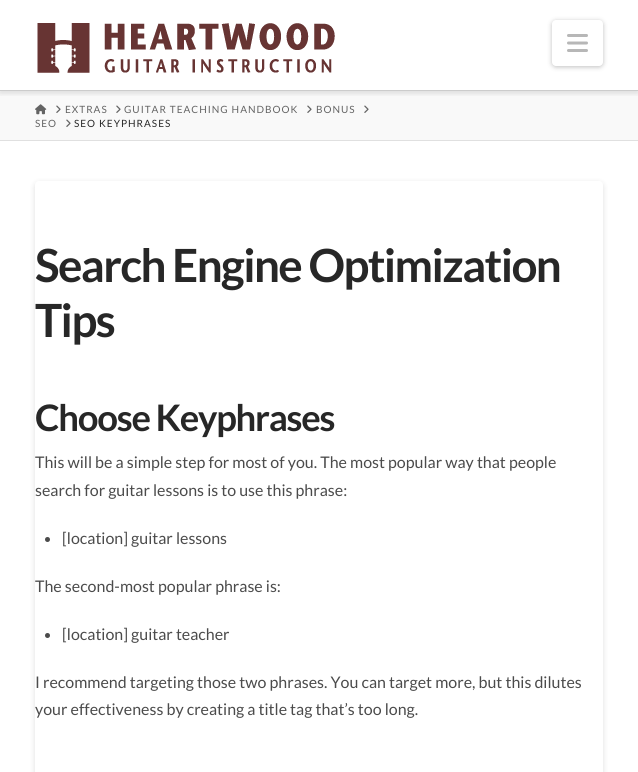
#include <cairo/cairo.h>
#include <math.h>
#include <stddef.h>


static void draw_spaced(cairo_t *cr, double x, double y, const char *s, double letter, double word) {
  cairo_move_to(cr, x, y);
  while (*s) {
    char ch[5] = {0};
    int n = 0;
    do ch[n++] = *s++; while ((*s & 0xC0) == 0x80);
    cairo_show_text(cr, ch);
    cairo_rel_move_to(cr, letter + word * (*ch == ' '), 0);
  }
}

static void rounded_rect(cairo_t *cr, double x, double y, double w, double h, double r) {
  cairo_new_sub_path(cr);
  cairo_arc(cr, x + w - r, y + h - r, r, 0, M_PI / 2);
  cairo_arc(cr, x + r, y + h - r, r, M_PI / 2, M_PI);
  cairo_arc(cr, x + r, y + r, r, M_PI, 1.5 * M_PI);
  cairo_arc(cr, x + w - r, y + r, r, 1.5 * M_PI, 2 * M_PI);
  cairo_close_path(cr);
}

static void draw_shadow(cairo_t *cr, double x, double y, double w, double h, double r, double blur, double alpha) {
  cairo_push_group_with_content(cr, CAIRO_CONTENT_ALPHA);
  cairo_set_operator(cr, CAIRO_OPERATOR_SOURCE);
  for (int i = 15; i >= -15 && fmin(w, h) + blur * i / 3 > 0; i -= 2) {
    double e = blur * i / 6;
    cairo_set_source_rgba(cr, 0, 0, 0, alpha * erfc((i - 1) / 8.5) / 2);
    rounded_rect(cr, x - e, y - e, w + 2 * e, h + 2 * e, fmax(0, fmin(r + e + blur * .6, fmin(w, h) / 2 + e)));
    cairo_fill(cr);
  }
  cairo_pattern_t *soft = cairo_pop_group(cr);
  cairo_mask(cr, soft);
  cairo_pattern_destroy(soft);
}

static void draw_image(cairo_t *cr, const char *path, double x, double y, double w, double h) {
  cairo_surface_t *image = cairo_image_surface_create_from_png(path);
  cairo_save(cr);
  cairo_set_source_surface(cr, image, x, y);
  cairo_rectangle(cr, x, y, w, h);
  cairo_fill(cr);
  cairo_restore(cr);
  cairo_surface_destroy(image);
}

static void draw(cairo_t *cr) {
  cairo_set_source_rgb(cr, 1, 1, 1);
  cairo_paint(cr);
  cairo_set_source_rgb(cr, 249 / 255.0, 249 / 255.0, 249 / 255.0);
  cairo_rectangle(cr, 0, 91, 638, 49);
  cairo_fill(cr);
  cairo_save(cr);
  cairo_rectangle(cr, 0, 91, 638, 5);
  cairo_clip(cr);
  cairo_set_source_rgb(cr, 0, 0, 0);
  draw_shadow(cr, 0, 2, 638, 91, 0, 3, 0.13);
  cairo_restore(cr);
  cairo_set_source_rgb(cr, 204 / 255.0, 204 / 255.0, 204 / 255.0);
  cairo_rectangle(cr, 0, 90, 638, 1);
  cairo_fill(cr);
  draw_image(cr, "images/1.png", 37, 23, 298, 50);
  cairo_set_source_rgb(cr, 0, 0, 0);
  draw_shadow(cr, 552, 21, 51, 46, 4, 2.5, 0.25);
  cairo_set_source_rgb(cr, 1, 1, 1);
  rounded_rect(cr, 552, 20, 51, 46, 4);
  cairo_fill(cr);
  draw_image(cr, "images/2.png", 567, 34, 21, 18);
  cairo_set_source_rgb(cr, 224 / 255.0, 224 / 255.0, 224 / 255.0);
  cairo_rectangle(cr, 0, 140, 638, 1);
  cairo_fill(cr);
  draw_image(cr, "images/3.png", 35, 104, 12, 11);
  draw_image(cr, "images/4.png", 56, 105, 5, 8);
  draw_image(cr, "images/4.png", 116, 105, 5, 8);
  draw_image(cr, "images/4.png", 307, 105, 5, 8);
  draw_image(cr, "images/4.png", 364, 105, 5, 8);
  draw_image(cr, "images/4.png", 66, 119, 5, 8);
  cairo_set_source_rgb(cr, 0, 0, 0);
  draw_shadow(cr, 35, 183, 568, 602, 4, 3, 0.13);
  cairo_set_source_rgb(cr, 1, 1, 1);
  rounded_rect(cr, 35, 181, 568, 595, 4);
  cairo_fill(cr);
  cairo_set_source_rgb(cr, 75 / 255.0, 75 / 255.0, 75 / 255.0);
  cairo_arc(cr, 47.5, 539.5, 2.5, 0, 2 * M_PI);
  cairo_fill(cr);
  cairo_arc(cr, 47.5, 635.5, 2.5, 0, 2 * M_PI);
  cairo_fill(cr);
  cairo_select_font_face(cr, "Lato", CAIRO_FONT_SLANT_NORMAL, CAIRO_FONT_WEIGHT_NORMAL);
  cairo_set_font_size(cr, 10);
  cairo_set_source_rgb(cr, 100 / 255.0, 100 / 255.0, 100 / 255.0);
  draw_spaced(cr, 65, 113, "EXTRAS", 1, 0);
  draw_spaced(cr, 124, 113, "GUITAR TEACHING HANDBOOK", 1, 0);
  draw_spaced(cr, 316, 113, "BONUS", 1, 0);
  draw_spaced(cr, 35, 127, "SEO", 1, 0);
  cairo_set_source_rgb(cr, 39 / 255.0, 39 / 255.0, 39 / 255.0);
  draw_spaced(cr, 74, 127, "SEO KEYPHRASES", 1, 0);
  cairo_select_font_face(cr, "Lato", CAIRO_FONT_SLANT_NORMAL, CAIRO_FONT_WEIGHT_BOLD);
  cairo_set_font_size(cr, 45.75);
  draw_spaced(cr, 35, 282, "Search Engine Optimization", -1.6, 0);
  draw_spaced(cr, 35, 337, "Tips", -1.6, 0);
  cairo_set_font_size(cr, 36.5);
  draw_spaced(cr, 35, 431, "Choose Keyphrases", -1.25, 0);
  cairo_select_font_face(cr, "Lato", CAIRO_FONT_SLANT_NORMAL, CAIRO_FONT_WEIGHT_NORMAL);
  cairo_set_font_size(cr, 16);
  cairo_set_source_rgb(cr, 75 / 255.0, 75 / 255.0, 75 / 255.0);
  cairo_move_to(cr, 35, 468);
  cairo_show_text(cr, "This will be a simple step for most of you. The most popular way that people");
  cairo_move_to(cr, 35, 496);
  cairo_show_text(cr, "search for guitar lessons is to use this phrase:");
  cairo_move_to(cr, 62, 544);
  cairo_show_text(cr, "[location] guitar lessons");
  cairo_move_to(cr, 35, 592);
  cairo_show_text(cr, "The second-most popular phrase is:");
  cairo_move_to(cr, 62, 640);
  cairo_show_text(cr, "[location] guitar teacher");
  cairo_move_to(cr, 35, 688);
  cairo_show_text(cr, "I recommend targeting those two phrases. You can target more, but this dilutes");
  cairo_move_to(cr, 35, 715);
  cairo_show_text(cr, "your effectiveness by creating a title tag that’s too long.");
}

int main(void) {
  cairo_surface_t *surface = cairo_image_surface_create(CAIRO_FORMAT_RGB24, 638, 772);
  cairo_t *cr = cairo_create(surface);
  cairo_font_options_t *options = cairo_font_options_create();
  cairo_font_options_set_hint_metrics(options, CAIRO_HINT_METRICS_OFF);
  cairo_font_options_set_hint_style(options, CAIRO_HINT_STYLE_NONE);
  cairo_set_font_options(cr, options);
  cairo_set_miter_limit(cr, 4);
  draw(cr);
  cairo_surface_write_to_png(surface, "out.png");
  cairo_font_options_destroy(options);
  cairo_destroy(cr);
  cairo_surface_destroy(surface);
  return 0;
}
